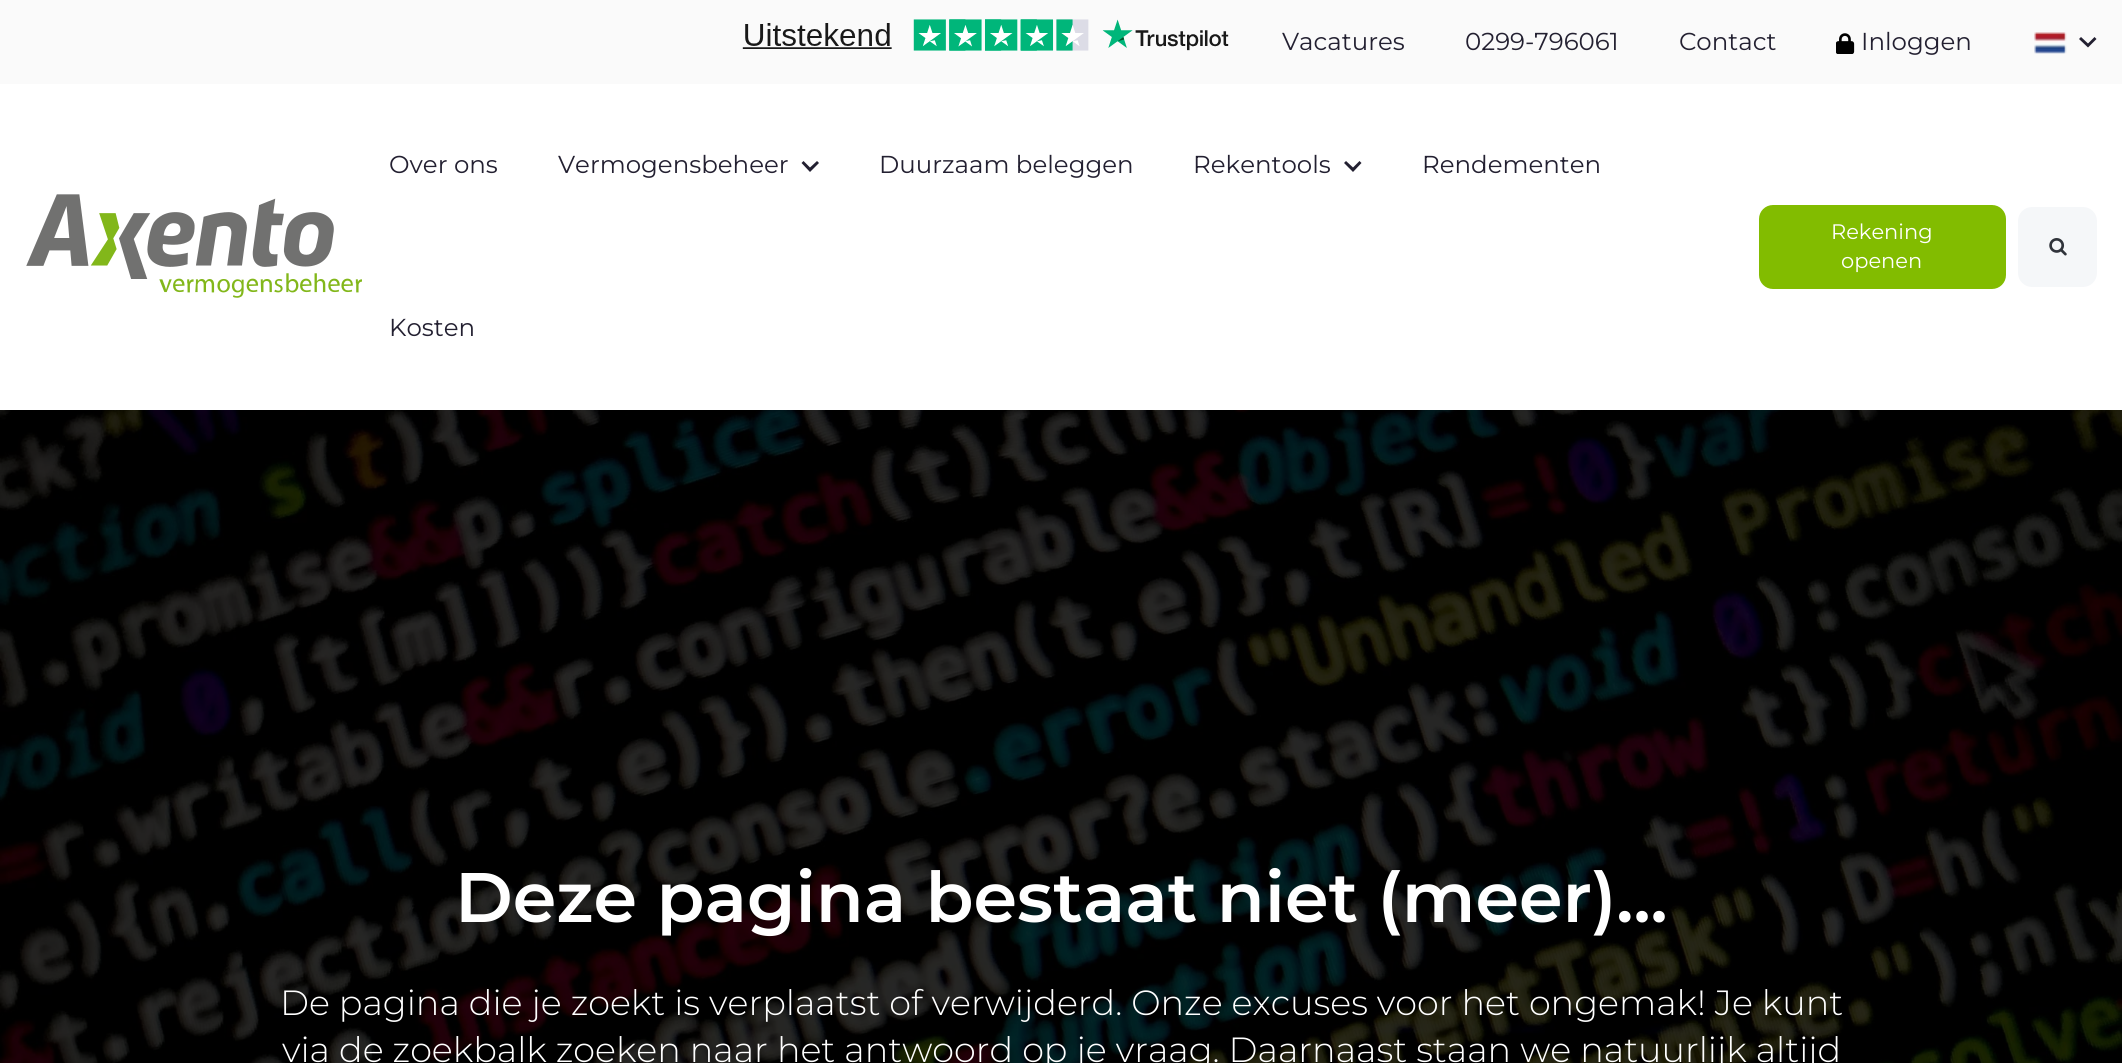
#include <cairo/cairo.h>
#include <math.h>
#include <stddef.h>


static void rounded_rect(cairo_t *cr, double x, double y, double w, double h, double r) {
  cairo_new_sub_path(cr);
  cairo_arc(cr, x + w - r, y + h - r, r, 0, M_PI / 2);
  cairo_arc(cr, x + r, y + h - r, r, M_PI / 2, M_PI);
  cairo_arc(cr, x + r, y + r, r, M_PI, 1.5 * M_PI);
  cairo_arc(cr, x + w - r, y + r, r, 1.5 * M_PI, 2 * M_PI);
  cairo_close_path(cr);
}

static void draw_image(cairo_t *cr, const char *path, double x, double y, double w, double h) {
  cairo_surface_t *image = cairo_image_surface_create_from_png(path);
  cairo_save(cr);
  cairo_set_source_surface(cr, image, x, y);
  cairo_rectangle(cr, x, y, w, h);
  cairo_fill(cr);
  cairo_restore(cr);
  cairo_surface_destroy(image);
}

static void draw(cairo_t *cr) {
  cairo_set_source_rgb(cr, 1, 1, 1);
  cairo_paint(cr);
  cairo_set_source_rgb(cr, 250 / 255.0, 250 / 255.0, 250 / 255.0);
  cairo_rectangle(cr, 0, 0, 2122, 84);
  cairo_fill(cr);
  draw_image(cr, "images/1.png", 742, 19, 487, 32);
  draw_image(cr, "images/2.png", 1836, 33, 19, 21);
  draw_image(cr, "images/3.png", 2034, 32, 33, 22);
  cairo_set_source_rgb(cr, 35 / 255.0, 32 / 255.0, 49 / 255.0);
  cairo_set_fill_rule(cr, CAIRO_FILL_RULE_EVEN_ODD);
  cairo_new_path(cr);
  cairo_move_to(cr, 2094.5, 37);
  cairo_line_to(cr, 2088, 43.5);
  cairo_line_to(cr, 2081, 37);
  cairo_line_to(cr, 2079, 39);
  cairo_line_to(cr, 2088, 47.5);
  cairo_line_to(cr, 2096.5, 39);
  cairo_close_path(cr);
  cairo_fill(cr);
  draw_image(cr, "images/4.png", 26, 194, 336, 104);
  cairo_new_path(cr);
  cairo_move_to(cr, 817, 161);
  cairo_line_to(cr, 810, 167.5);
  cairo_line_to(cr, 803.5, 161);
  cairo_line_to(cr, 801.5, 163);
  cairo_line_to(cr, 810, 172);
  cairo_line_to(cr, 819, 163);
  cairo_close_path(cr);
  cairo_fill(cr);
  cairo_new_path(cr);
  cairo_move_to(cr, 1359.5, 161);
  cairo_line_to(cr, 1353, 167.5);
  cairo_line_to(cr, 1346, 161);
  cairo_line_to(cr, 1344, 163);
  cairo_line_to(cr, 1353, 172);
  cairo_line_to(cr, 1361.5, 163);
  cairo_close_path(cr);
  cairo_fill(cr);
  cairo_set_source_rgb(cr, 130 / 255.0, 188 / 255.0, 0);
  rounded_rect(cr, 1760, 206, 245, 82, 13);
  cairo_fill_preserve(cr);
  cairo_stroke(cr);
  cairo_set_source_rgb(cr, 245 / 255.0, 247 / 255.0, 249 / 255.0);
  rounded_rect(cr, 2018, 207, 79, 80, 14);
  cairo_fill(cr);
  draw_image(cr, "images/5.png", 2049, 238, 18, 18);
  draw_image(cr, "images/6.png", 0, 410, 2122, 653);
  cairo_select_font_face(cr, "Montserrat", CAIRO_FONT_SLANT_NORMAL, CAIRO_FONT_WEIGHT_NORMAL);
  cairo_set_font_size(cr, 24.5);
  cairo_set_source_rgb(cr, 35 / 255.0, 32 / 255.0, 49 / 255.0);
  cairo_move_to(cr, 1282, 50);
  cairo_show_text(cr, "Vacatures");
  cairo_move_to(cr, 1465, 50);
  cairo_show_text(cr, "0299-796061");
  cairo_move_to(cr, 1679, 50);
  cairo_show_text(cr, "Contact");
  cairo_move_to(cr, 1861, 50);
  cairo_show_text(cr, "Inloggen");
  cairo_move_to(cr, 389, 173);
  cairo_show_text(cr, "Over ons");
  cairo_move_to(cr, 558, 173);
  cairo_show_text(cr, "Vermogensbeheer");
  cairo_move_to(cr, 879, 173);
  cairo_show_text(cr, "Duurzaam beleggen");
  cairo_move_to(cr, 1193, 173);
  cairo_show_text(cr, "Rekentools");
  cairo_move_to(cr, 1422, 173);
  cairo_show_text(cr, "Rendementen");
  cairo_move_to(cr, 389, 336);
  cairo_show_text(cr, "Kosten");
  cairo_set_font_size(cr, 21);
  cairo_set_source_rgb(cr, 1, 1, 1);
  cairo_move_to(cr, 1831, 239);
  cairo_show_text(cr, "Rekening");
  cairo_move_to(cr, 1841, 268);
  cairo_show_text(cr, "openen");
  cairo_select_font_face(cr, "Montserrat SemiBold", CAIRO_FONT_SLANT_NORMAL, CAIRO_FONT_WEIGHT_NORMAL);
  cairo_set_font_size(cr, 70);
  cairo_move_to(cr, 455, 922);
  cairo_show_text(cr, "Deze pagina bestaat niet (meer)...");
  cairo_select_font_face(cr, "Montserrat Light", CAIRO_FONT_SLANT_NORMAL, CAIRO_FONT_WEIGHT_NORMAL);
  cairo_set_font_size(cr, 35);
  cairo_move_to(cr, 280, 1015);
  cairo_show_text(cr, "De pagina die je zoekt is verplaatst of verwijderd. Onze excuses voor het ongemak! Je kunt");
  cairo_move_to(cr, 282, 1062);
  cairo_show_text(cr, "via de zoekbalk zoeken naar het antwoord op je vraag. Daarnaast staan we natuurlijk altijd");
}

int main(void) {
  cairo_surface_t *surface = cairo_image_surface_create(CAIRO_FORMAT_RGB24, 2122, 1063);
  cairo_t *cr = cairo_create(surface);
  cairo_font_options_t *options = cairo_font_options_create();
  cairo_font_options_set_hint_metrics(options, CAIRO_HINT_METRICS_OFF);
  cairo_font_options_set_hint_style(options, CAIRO_HINT_STYLE_NONE);
  cairo_set_font_options(cr, options);
  cairo_set_miter_limit(cr, 4);
  draw(cr);
  cairo_surface_write_to_png(surface, "out.png");
  cairo_font_options_destroy(options);
  cairo_destroy(cr);
  cairo_surface_destroy(surface);
  return 0;
}
